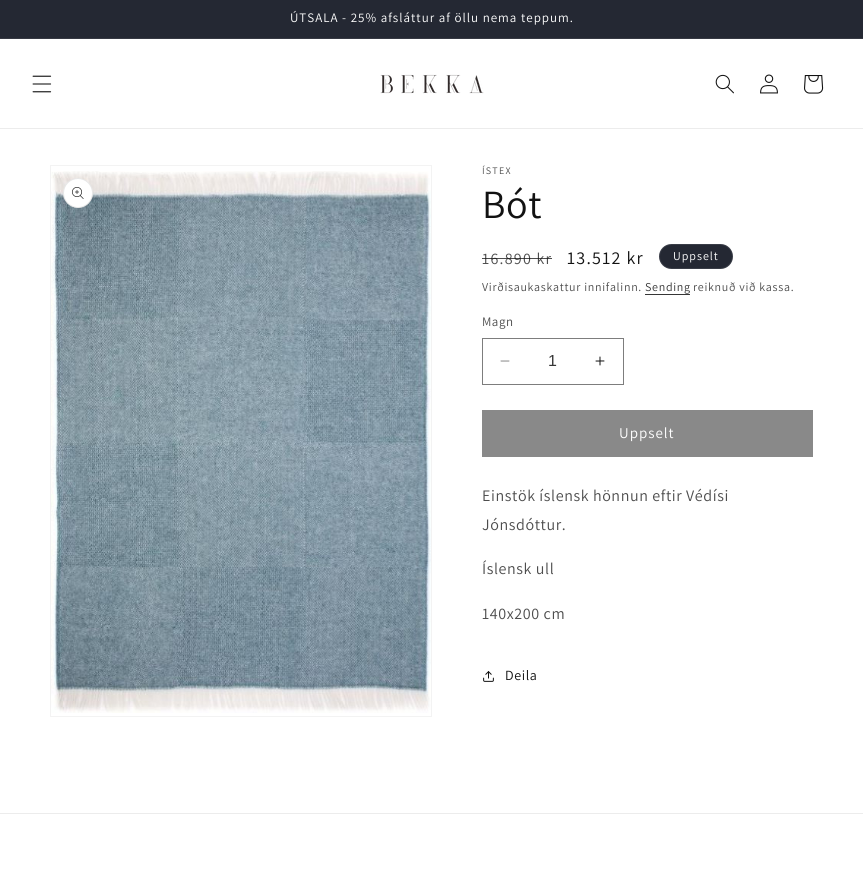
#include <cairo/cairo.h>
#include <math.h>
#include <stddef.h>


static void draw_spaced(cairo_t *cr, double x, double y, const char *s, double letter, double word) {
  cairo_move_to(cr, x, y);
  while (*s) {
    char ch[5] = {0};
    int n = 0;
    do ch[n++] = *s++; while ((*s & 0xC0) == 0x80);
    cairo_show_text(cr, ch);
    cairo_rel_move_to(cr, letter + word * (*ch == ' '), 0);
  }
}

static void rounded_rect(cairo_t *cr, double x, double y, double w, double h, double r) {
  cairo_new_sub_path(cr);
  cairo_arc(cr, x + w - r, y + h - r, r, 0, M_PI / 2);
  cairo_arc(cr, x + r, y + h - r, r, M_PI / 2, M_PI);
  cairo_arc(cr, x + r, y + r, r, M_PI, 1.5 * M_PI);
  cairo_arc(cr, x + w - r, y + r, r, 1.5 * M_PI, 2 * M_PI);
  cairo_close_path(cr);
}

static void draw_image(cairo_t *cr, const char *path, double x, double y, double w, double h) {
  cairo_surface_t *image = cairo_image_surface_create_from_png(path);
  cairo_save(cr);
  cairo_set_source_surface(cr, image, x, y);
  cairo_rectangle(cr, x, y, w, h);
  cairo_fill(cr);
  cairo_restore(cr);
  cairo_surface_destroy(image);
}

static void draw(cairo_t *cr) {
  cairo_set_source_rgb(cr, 1, 1, 1);
  cairo_paint(cr);
  cairo_set_source_rgb(cr, 36 / 255.0, 40 / 255.0, 51 / 255.0);
  cairo_rectangle(cr, 0, 0, 863, 38);
  cairo_fill(cr);
  cairo_set_source_rgb(cr, 54 / 255.0, 57 / 255.0, 67 / 255.0);
  cairo_rectangle(cr, 0, 38, 863, 1);
  cairo_fill(cr);
  cairo_set_source_rgb(cr, 236 / 255.0, 236 / 255.0, 236 / 255.0);
  cairo_rectangle(cr, 0, 128, 863, 1);
  cairo_fill(cr);
  draw_image(cr, "images/1.png", 32, 75, 20, 18);
  draw_image(cr, "images/2.png", 380, 74, 104, 20);
  draw_image(cr, "images/3.png", 715, 74, 19, 20);
  draw_image(cr, "images/4.png", 760, 74, 18, 20);
  draw_image(cr, "images/5.png", 804, 75, 20, 19);
  cairo_rectangle(cr, 50.5, 165.5, 381, 551);
  cairo_set_source_rgb(cr, 243 / 255.0, 243 / 255.0, 243 / 255.0);
  cairo_set_line_width(cr, 1);
  cairo_stroke(cr);
  draw_image(cr, "images/6.png", 51, 171, 380, 542);
  cairo_set_source_rgb(cr, 1, 1, 1);
  cairo_arc(cr, 78, 193, 15, 0, 2 * M_PI);
  cairo_fill(cr);
  cairo_arc(cr, 78, 193, 14.5, 0, 2 * M_PI);
  cairo_set_source_rgba(cr, 18 / 255.0, 18 / 255.0, 18 / 255.0, 0.1);
  cairo_stroke(cr);
  draw_image(cr, "images/7.png", 72, 187, 12, 12);
  cairo_set_source_rgb(cr, 36 / 255.0, 40 / 255.0, 51 / 255.0);
  rounded_rect(cr, 659, 244, 74, 25, 12.5);
  cairo_fill(cr);
  rounded_rect(cr, 659.5, 244.5, 73, 24, 12);
  cairo_set_source_rgba(cr, 1, 1, 1, 0.1);
  cairo_stroke(cr);
  cairo_set_source_rgb(cr, 54 / 255.0, 54 / 255.0, 54 / 255.0);
  cairo_rectangle(cr, 645, 294, 45, 1);
  cairo_fill(cr);
  draw_image(cr, "images/8.png", 500, 360, 10, 2);
  draw_image(cr, "images/9.png", 595, 356, 10, 10);
  cairo_rectangle(cr, 482.5, 338.5, 141, 46);
  cairo_set_source_rgb(cr, 125 / 255.0, 125 / 255.0, 125 / 255.0);
  cairo_stroke(cr);
  cairo_set_source_rgb(cr, 137 / 255.0, 137 / 255.0, 137 / 255.0);
  cairo_rectangle(cr, 482, 410, 331, 47);
  cairo_fill(cr);
  draw_image(cr, "images/10.png", 483, 671, 11, 11);
  cairo_set_source_rgb(cr, 236 / 255.0, 236 / 255.0, 236 / 255.0);
  cairo_rectangle(cr, 0, 813, 863, 1);
  cairo_fill(cr);
  cairo_select_font_face(cr, "Assistant", CAIRO_FONT_SLANT_NORMAL, CAIRO_FONT_WEIGHT_NORMAL);
  cairo_set_font_size(cr, 13);
  cairo_set_source_rgb(cr, 1, 1, 1);
  draw_spaced(cr, 290, 22, "ÚTSALA - 25% afsláttur af öllu nema teppum.", 1, 0);
  cairo_set_font_size(cr, 10);
  cairo_set_source_rgb(cr, 77 / 255.0, 77 / 255.0, 77 / 255.0);
  draw_spaced(cr, 482, 174, "ÍSTEX", 1.25, 0);
  cairo_set_font_size(cr, 40);
  cairo_set_source_rgb(cr, 18 / 255.0, 18 / 255.0, 18 / 255.0);
  draw_spaced(cr, 482, 218, "Bót", 0.6, 0);
  cairo_set_font_size(cr, 16);
  cairo_set_source_rgb(cr, 77 / 255.0, 77 / 255.0, 77 / 255.0);
  draw_spaced(cr, 482, 264, "16.890 kr", 1.25, 0);
  cairo_set_source_rgba(cr, 18 / 255.0, 18 / 255.0, 18 / 255.0, 0.75);
  cairo_rectangle(cr, 482, 258, 70, 1);
  cairo_fill(cr);
  cairo_set_font_size(cr, 18);
  cairo_set_source_rgb(cr, 18 / 255.0, 18 / 255.0, 18 / 255.0);
  draw_spaced(cr, 567, 264, "13.512 kr", 1.25, 0);
  cairo_set_font_size(cr, 12);
  cairo_set_source_rgb(cr, 1, 1, 1);
  draw_spaced(cr, 673, 260, "Uppselt", 1, 0);
  cairo_set_source_rgb(cr, 77 / 255.0, 77 / 255.0, 77 / 255.0);
  draw_spaced(cr, 482, 291, "Virðisaukaskattur innifalinn.", 0.7, 0);
  cairo_set_source_rgb(cr, 54 / 255.0, 54 / 255.0, 54 / 255.0);
  draw_spaced(cr, 645, 291, "Sending", 0.7, 0);
  cairo_set_source_rgb(cr, 77 / 255.0, 77 / 255.0, 77 / 255.0);
  draw_spaced(cr, 693, 291, "reiknuð við kassa.", 0.7, 0);
  cairo_set_font_size(cr, 13);
  draw_spaced(cr, 482, 326, "Magn", 0.5, 0);
  cairo_select_font_face(cr, "Liberation Sans", CAIRO_FONT_SLANT_NORMAL, CAIRO_FONT_WEIGHT_NORMAL);
  cairo_set_font_size(cr, 16);
  cairo_set_source_rgb(cr, 54 / 255.0, 54 / 255.0, 54 / 255.0);
  cairo_move_to(cr, 548, 366);
  cairo_show_text(cr, "1");
  cairo_select_font_face(cr, "Assistant", CAIRO_FONT_SLANT_NORMAL, CAIRO_FONT_WEIGHT_NORMAL);
  cairo_set_font_size(cr, 15);
  cairo_set_source_rgb(cr, 1, 1, 1);
  draw_spaced(cr, 619, 438, "Uppselt", 1, 0);
  cairo_set_font_size(cr, 16);
  cairo_set_source_rgb(cr, 77 / 255.0, 77 / 255.0, 77 / 255.0);
  draw_spaced(cr, 482, 501, "Einstök íslensk hönnun eftir Védísi", 0.6, 0);
  draw_spaced(cr, 482, 530, "Jónsdóttur.", 0.6, 0);
  draw_spaced(cr, 482, 574, "Íslensk ull", 0.6, 0);
  draw_spaced(cr, 482, 619, "140x200 cm", 0.6, 0);
  cairo_set_font_size(cr, 14);
  cairo_set_source_rgb(cr, 18 / 255.0, 18 / 255.0, 18 / 255.0);
  draw_spaced(cr, 505, 680, "Deila", 0.6, 0);
}

int main(void) {
  cairo_surface_t *surface = cairo_image_surface_create(CAIRO_FORMAT_RGB24, 863, 879);
  cairo_t *cr = cairo_create(surface);
  cairo_font_options_t *options = cairo_font_options_create();
  cairo_font_options_set_hint_metrics(options, CAIRO_HINT_METRICS_OFF);
  cairo_font_options_set_hint_style(options, CAIRO_HINT_STYLE_NONE);
  cairo_set_font_options(cr, options);
  cairo_set_miter_limit(cr, 4);
  draw(cr);
  cairo_surface_write_to_png(surface, "out.png");
  cairo_font_options_destroy(options);
  cairo_destroy(cr);
  cairo_surface_destroy(surface);
  return 0;
}
